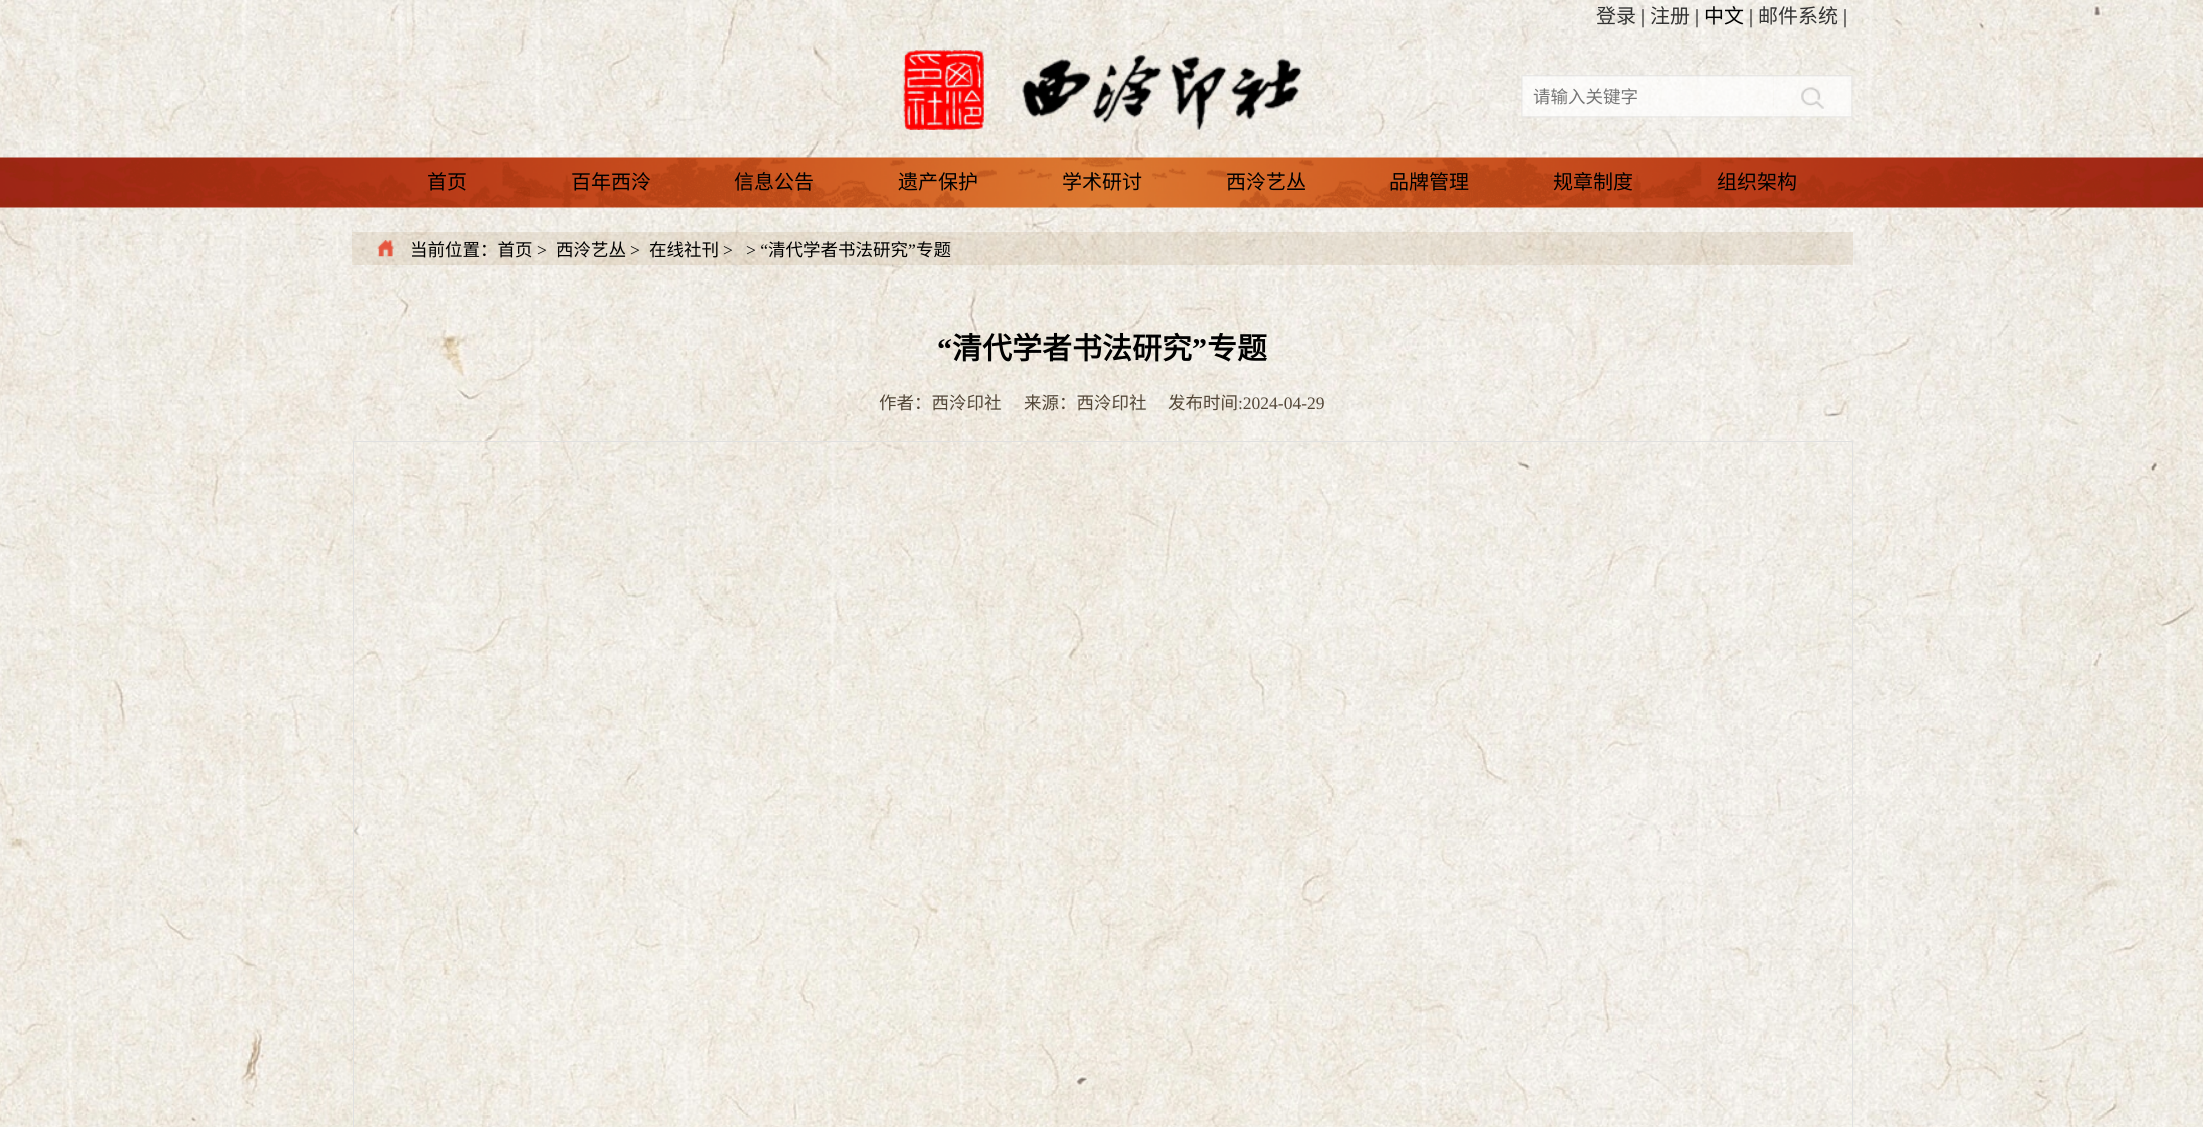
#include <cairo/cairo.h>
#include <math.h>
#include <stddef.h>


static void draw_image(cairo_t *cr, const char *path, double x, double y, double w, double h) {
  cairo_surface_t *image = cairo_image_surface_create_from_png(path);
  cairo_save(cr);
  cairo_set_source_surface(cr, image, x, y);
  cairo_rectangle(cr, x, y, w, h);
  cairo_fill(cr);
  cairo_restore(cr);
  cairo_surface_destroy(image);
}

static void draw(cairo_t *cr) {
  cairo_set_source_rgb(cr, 1, 1, 1);
  cairo_paint(cr);
  draw_image(cr, "images/1.png", 0, 0, 2203, 1127);
  draw_image(cr, "images/2.png", 903, 50, 399, 80);
  draw_image(cr, "images/3.png", 1521, 75, 253, 43);
  draw_image(cr, "images/4.png", 1774, 75, 79, 43);
  draw_image(cr, "images/5.png", 0, 157, 2203, 51);
  cairo_set_source_rgba(cr, 168 / 255.0, 134 / 255.0, 87 / 255.0, 0.15);
  cairo_rectangle(cr, 352, 232, 1501, 33);
  cairo_fill(cr);
  draw_image(cr, "images/6.png", 377, 240, 17, 17);
  cairo_rectangle(cr, 353.5, 441.5, 1499, 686);
  cairo_set_source_rgb(cr, 224 / 255.0, 224 / 255.0, 224 / 255.0);
  cairo_set_line_width(cr, 1);
  cairo_stroke(cr);
  cairo_select_font_face(cr, "Noto Sans CJK SC", CAIRO_FONT_SLANT_NORMAL, CAIRO_FONT_WEIGHT_NORMAL);
  cairo_set_font_size(cr, 20);
  cairo_set_source_rgb(cr, 51 / 255.0, 51 / 255.0, 51 / 255.0);
  cairo_move_to(cr, 1596, 23);
  cairo_show_text(cr, "登录");
  cairo_select_font_face(cr, "Liberation Serif", CAIRO_FONT_SLANT_NORMAL, CAIRO_FONT_WEIGHT_NORMAL);
  cairo_set_source_rgb(cr, 0, 0, 0);
  cairo_move_to(cr, 1641, 23);
  cairo_show_text(cr, "|");
  cairo_select_font_face(cr, "Noto Sans CJK SC", CAIRO_FONT_SLANT_NORMAL, CAIRO_FONT_WEIGHT_NORMAL);
  cairo_set_source_rgb(cr, 51 / 255.0, 51 / 255.0, 51 / 255.0);
  cairo_move_to(cr, 1650, 23);
  cairo_show_text(cr, "注册");
  cairo_select_font_face(cr, "Liberation Serif", CAIRO_FONT_SLANT_NORMAL, CAIRO_FONT_WEIGHT_NORMAL);
  cairo_set_source_rgb(cr, 0, 0, 0);
  cairo_move_to(cr, 1695, 23);
  cairo_show_text(cr, "|");
  cairo_select_font_face(cr, "Noto Sans CJK SC", CAIRO_FONT_SLANT_NORMAL, CAIRO_FONT_WEIGHT_NORMAL);
  cairo_move_to(cr, 1704, 23);
  cairo_show_text(cr, "中文");
  cairo_select_font_face(cr, "Liberation Serif", CAIRO_FONT_SLANT_NORMAL, CAIRO_FONT_WEIGHT_NORMAL);
  cairo_move_to(cr, 1749, 23);
  cairo_show_text(cr, "|");
  cairo_select_font_face(cr, "Noto Sans CJK SC", CAIRO_FONT_SLANT_NORMAL, CAIRO_FONT_WEIGHT_NORMAL);
  cairo_set_source_rgb(cr, 51 / 255.0, 51 / 255.0, 51 / 255.0);
  cairo_move_to(cr, 1758, 23);
  cairo_show_text(cr, "邮件系统");
  cairo_select_font_face(cr, "Liberation Serif", CAIRO_FONT_SLANT_NORMAL, CAIRO_FONT_WEIGHT_NORMAL);
  cairo_set_source_rgb(cr, 0, 0, 0);
  cairo_move_to(cr, 1843, 23);
  cairo_show_text(cr, "|");
  cairo_select_font_face(cr, "Noto Sans CJK SC", CAIRO_FONT_SLANT_NORMAL, CAIRO_FONT_WEIGHT_NORMAL);
  cairo_set_font_size(cr, 17.5);
  cairo_set_source_rgb(cr, 117 / 255.0, 117 / 255.0, 117 / 255.0);
  cairo_move_to(cr, 1533, 103);
  cairo_show_text(cr, "请输入关键字");
  cairo_set_font_size(cr, 20);
  cairo_set_source_rgb(cr, 0, 0, 0);
  cairo_move_to(cr, 427, 189);
  cairo_show_text(cr, "首页");
  cairo_move_to(cr, 571, 189);
  cairo_show_text(cr, "百年西泠");
  cairo_move_to(cr, 734, 189);
  cairo_show_text(cr, "信息公告");
  cairo_move_to(cr, 898, 189);
  cairo_show_text(cr, "遗产保护");
  cairo_move_to(cr, 1062, 189);
  cairo_show_text(cr, "学术研讨");
  cairo_move_to(cr, 1226, 189);
  cairo_show_text(cr, "西泠艺丛");
  cairo_move_to(cr, 1389, 189);
  cairo_show_text(cr, "品牌管理");
  cairo_move_to(cr, 1553, 189);
  cairo_show_text(cr, "规章制度");
  cairo_move_to(cr, 1717, 189);
  cairo_show_text(cr, "组织架构");
  cairo_set_font_size(cr, 17.5);
  cairo_move_to(cr, 410, 256);
  cairo_show_text(cr, "当前位置：首页");
  cairo_select_font_face(cr, "Liberation Serif", CAIRO_FONT_SLANT_NORMAL, CAIRO_FONT_WEIGHT_NORMAL);
  cairo_move_to(cr, 537, 256);
  cairo_show_text(cr, ">");
  cairo_select_font_face(cr, "Noto Sans CJK SC", CAIRO_FONT_SLANT_NORMAL, CAIRO_FONT_WEIGHT_NORMAL);
  cairo_move_to(cr, 556, 256);
  cairo_show_text(cr, "西泠艺丛");
  cairo_select_font_face(cr, "Liberation Serif", CAIRO_FONT_SLANT_NORMAL, CAIRO_FONT_WEIGHT_NORMAL);
  cairo_move_to(cr, 630, 256);
  cairo_show_text(cr, ">");
  cairo_select_font_face(cr, "Noto Sans CJK SC", CAIRO_FONT_SLANT_NORMAL, CAIRO_FONT_WEIGHT_NORMAL);
  cairo_move_to(cr, 649, 256);
  cairo_show_text(cr, "在线社刊");
  cairo_select_font_face(cr, "Liberation Serif", CAIRO_FONT_SLANT_NORMAL, CAIRO_FONT_WEIGHT_NORMAL);
  cairo_move_to(cr, 723, 256);
  cairo_show_text(cr, ">");
  cairo_move_to(cr, 746, 256);
  cairo_show_text(cr, "> “");
  cairo_select_font_face(cr, "Noto Sans CJK SC", CAIRO_FONT_SLANT_NORMAL, CAIRO_FONT_WEIGHT_NORMAL);
  cairo_move_to(cr, 768, 256);
  cairo_show_text(cr, "清代学者书法研究");
  cairo_select_font_face(cr, "Liberation Serif", CAIRO_FONT_SLANT_NORMAL, CAIRO_FONT_WEIGHT_NORMAL);
  cairo_move_to(cr, 908, 256);
  cairo_show_text(cr, "”");
  cairo_select_font_face(cr, "Noto Sans CJK SC", CAIRO_FONT_SLANT_NORMAL, CAIRO_FONT_WEIGHT_NORMAL);
  cairo_move_to(cr, 916, 256);
  cairo_show_text(cr, "专题");
  cairo_select_font_face(cr, "Liberation Serif", CAIRO_FONT_SLANT_NORMAL, CAIRO_FONT_WEIGHT_BOLD);
  cairo_set_font_size(cr, 30);
  cairo_move_to(cr, 937, 359);
  cairo_show_text(cr, "“");
  cairo_select_font_face(cr, "Noto Sans CJK SC", CAIRO_FONT_SLANT_NORMAL, CAIRO_FONT_WEIGHT_BOLD);
  cairo_move_to(cr, 952, 359);
  cairo_show_text(cr, "清代学者书法研究");
  cairo_select_font_face(cr, "Liberation Serif", CAIRO_FONT_SLANT_NORMAL, CAIRO_FONT_WEIGHT_BOLD);
  cairo_move_to(cr, 1192, 359);
  cairo_show_text(cr, "”");
  cairo_select_font_face(cr, "Noto Sans CJK SC", CAIRO_FONT_SLANT_NORMAL, CAIRO_FONT_WEIGHT_BOLD);
  cairo_move_to(cr, 1207, 359);
  cairo_show_text(cr, "专题");
  cairo_select_font_face(cr, "Noto Sans CJK SC", CAIRO_FONT_SLANT_NORMAL, CAIRO_FONT_WEIGHT_NORMAL);
  cairo_set_font_size(cr, 17.5);
  cairo_set_source_rgb(cr, 82 / 255.0, 70 / 255.0, 55 / 255.0);
  cairo_move_to(cr, 879, 409);
  cairo_show_text(cr, "作者：西泠印社");
  cairo_move_to(cr, 1024, 409);
  cairo_show_text(cr, "来源：西泠印社");
  cairo_move_to(cr, 1168, 409);
  cairo_show_text(cr, "发布时间");
  cairo_select_font_face(cr, "Liberation Serif", CAIRO_FONT_SLANT_NORMAL, CAIRO_FONT_WEIGHT_NORMAL);
  cairo_move_to(cr, 1238, 409);
  cairo_show_text(cr, ":2024-04-29");
}

int main(void) {
  cairo_surface_t *surface = cairo_image_surface_create(CAIRO_FORMAT_RGB24, 2203, 1127);
  cairo_t *cr = cairo_create(surface);
  cairo_font_options_t *options = cairo_font_options_create();
  cairo_font_options_set_hint_metrics(options, CAIRO_HINT_METRICS_OFF);
  cairo_font_options_set_hint_style(options, CAIRO_HINT_STYLE_NONE);
  cairo_set_font_options(cr, options);
  cairo_set_miter_limit(cr, 4);
  draw(cr);
  cairo_surface_write_to_png(surface, "out.png");
  cairo_font_options_destroy(options);
  cairo_destroy(cr);
  cairo_surface_destroy(surface);
  return 0;
}
